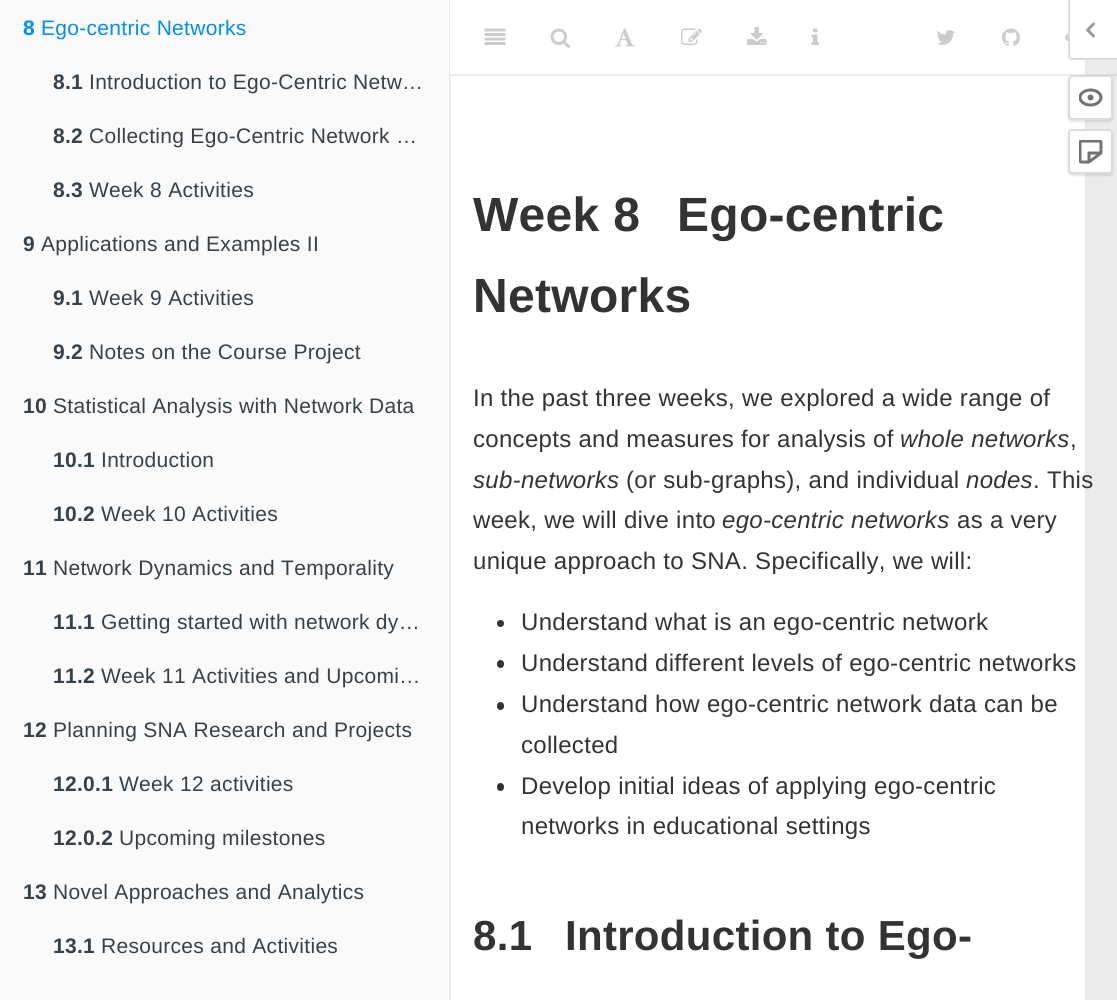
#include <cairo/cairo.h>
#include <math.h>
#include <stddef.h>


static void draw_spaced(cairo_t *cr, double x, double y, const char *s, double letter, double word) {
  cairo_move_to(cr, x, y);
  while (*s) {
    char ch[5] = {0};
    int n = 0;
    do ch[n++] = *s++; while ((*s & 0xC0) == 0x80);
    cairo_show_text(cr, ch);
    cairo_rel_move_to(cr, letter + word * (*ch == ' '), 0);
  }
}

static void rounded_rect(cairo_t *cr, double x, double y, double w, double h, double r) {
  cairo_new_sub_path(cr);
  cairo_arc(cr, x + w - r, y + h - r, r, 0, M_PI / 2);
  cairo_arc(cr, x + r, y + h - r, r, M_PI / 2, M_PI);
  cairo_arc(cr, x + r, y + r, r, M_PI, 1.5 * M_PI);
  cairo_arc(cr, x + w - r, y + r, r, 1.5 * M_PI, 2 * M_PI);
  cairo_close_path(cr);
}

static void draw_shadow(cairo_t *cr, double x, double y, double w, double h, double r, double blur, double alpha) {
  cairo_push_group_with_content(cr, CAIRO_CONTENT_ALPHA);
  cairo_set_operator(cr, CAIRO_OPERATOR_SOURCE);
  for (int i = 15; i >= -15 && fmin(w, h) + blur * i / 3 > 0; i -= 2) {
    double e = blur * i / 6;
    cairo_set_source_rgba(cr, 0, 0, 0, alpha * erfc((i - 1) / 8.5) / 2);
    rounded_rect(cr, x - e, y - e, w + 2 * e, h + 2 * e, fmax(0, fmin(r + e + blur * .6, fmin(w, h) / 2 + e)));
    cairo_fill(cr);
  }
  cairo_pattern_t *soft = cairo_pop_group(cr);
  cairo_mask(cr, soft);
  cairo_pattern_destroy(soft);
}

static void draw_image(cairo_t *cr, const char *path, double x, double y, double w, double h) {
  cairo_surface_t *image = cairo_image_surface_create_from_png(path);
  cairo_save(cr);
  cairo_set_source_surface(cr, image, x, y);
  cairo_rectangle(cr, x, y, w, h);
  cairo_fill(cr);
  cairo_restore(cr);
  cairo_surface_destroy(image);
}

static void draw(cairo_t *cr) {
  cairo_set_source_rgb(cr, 1, 1, 1);
  cairo_paint(cr);
  cairo_set_source_rgb(cr, 237 / 255.0, 237 / 255.0, 237 / 255.0);
  cairo_rectangle(cr, 450, 75, 667, 1);
  cairo_fill(cr);
  cairo_rectangle(cr, 450, 76, 1, 924);
  cairo_fill(cr);
  cairo_set_source_rgb(cr, 220 / 255.0, 220 / 255.0, 220 / 255.0);
  cairo_rectangle(cr, 450, 74, 1, 2);
  cairo_fill(cr);
  cairo_set_source_rgb(cr, 237 / 255.0, 237 / 255.0, 237 / 255.0);
  cairo_rectangle(cr, 450, 74, 667, 1);
  cairo_fill(cr);
  cairo_set_source_rgba(cr, 0, 0, 0, 0.08);
  cairo_rectangle(cr, 1085, 60, 32, 940);
  cairo_fill(cr);
  cairo_set_source_rgb(cr, 219 / 255.0, 219 / 255.0, 219 / 255.0);
  cairo_set_fill_rule(cr, CAIRO_FILL_RULE_EVEN_ODD);
  cairo_new_path(cr);
  cairo_move_to(cr, 1068, 0);
  cairo_line_to(cr, 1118, 0);
  cairo_line_to(cr, 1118, 60);
  cairo_line_to(cr, 1072, 60);
  cairo_curve_to(cr, 1070, 60, 1068, 58, 1068, 56);
  cairo_close_path(cr);
  cairo_move_to(cr, 1070, 0);
  cairo_line_to(cr, 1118, 0);
  cairo_line_to(cr, 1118, 58);
  cairo_line_to(cr, 1072, 58);
  cairo_curve_to(cr, 1071, 58, 1070, 57, 1070, 56);
  cairo_close_path(cr);
  cairo_fill(cr);
  draw_image(cr, "images/1.png", 1086, 22, 9, 16);
  cairo_set_source_rgb(cr, 0, 0, 0);
  draw_shadow(cr, 1068, 77, 45, 45, 4, 1, 0.1);
  cairo_set_source_rgb(cr, 1, 1, 1);
  rounded_rect(cr, 1069, 76, 43, 43, 3);
  cairo_fill_preserve(cr);
  cairo_set_source_rgb(cr, 219 / 255.0, 219 / 255.0, 219 / 255.0);
  cairo_stroke(cr);
  draw_image(cr, "images/2.png", 1079, 88, 24, 19);
  cairo_set_source_rgb(cr, 0, 0, 0);
  draw_shadow(cr, 1068, 131, 45, 45, 4, 1, 0.1);
  cairo_set_source_rgb(cr, 1, 1, 1);
  rounded_rect(cr, 1069, 130, 43, 43, 3);
  cairo_fill_preserve(cr);
  cairo_set_source_rgb(cr, 219 / 255.0, 219 / 255.0, 219 / 255.0);
  cairo_stroke(cr);
  draw_image(cr, "images/3.png", 1079, 140, 24, 24);
  cairo_set_source_rgb(cr, 250 / 255.0, 250 / 255.0, 250 / 255.0);
  cairo_rectangle(cr, 0, 0, 449, 1000);
  cairo_fill(cr);
  cairo_set_source_rgb(cr, 232 / 255.0, 232 / 255.0, 232 / 255.0);
  cairo_rectangle(cr, 449, 0, 1, 1000);
  cairo_fill(cr);
  draw_image(cr, "images/4.png", 484, 28, 22, 17);
  draw_image(cr, "images/5.png", 550, 28, 20, 20);
  draw_image(cr, "images/6.png", 615, 28, 20, 19);
  draw_image(cr, "images/7.png", 681, 28, 21, 17);
  draw_image(cr, "images/8.png", 747, 27, 20, 18);
  draw_image(cr, "images/9.png", 811, 28, 8, 17);
  draw_image(cr, "images/10.png", 937, 30, 18, 15);
  draw_image(cr, "images/11.png", 1002, 28, 18, 18);
  draw_image(cr, "images/12.png", 1065, 33, 3, 9);
  cairo_set_source_rgb(cr, 51 / 255.0, 51 / 255.0, 51 / 255.0);
  cairo_arc(cr, 500.5, 623.5, 3.5, 0, 2 * M_PI);
  cairo_fill(cr);
  rounded_rect(cr, 497, 660, 7, 8, 3.5);
  cairo_fill(cr);
  rounded_rect(cr, 497, 702, 7, 8, 3.5);
  cairo_fill(cr);
  rounded_rect(cr, 497, 783, 7, 8, 3.5);
  cairo_fill(cr);
  cairo_select_font_face(cr, "Liberation Sans", CAIRO_FONT_SLANT_NORMAL, CAIRO_FONT_WEIGHT_BOLD);
  cairo_set_font_size(cr, 21);
  cairo_set_source_rgb(cr, 0, 140 / 255.0, 1);
  draw_spaced(cr, 23, 35, "8", 0.3, 0);
  cairo_select_font_face(cr, "Liberation Sans", CAIRO_FONT_SLANT_NORMAL, CAIRO_FONT_WEIGHT_NORMAL);
  draw_spaced(cr, 41, 35, "Ego-centric Networks", 0.3, 0);
  cairo_select_font_face(cr, "Liberation Sans", CAIRO_FONT_SLANT_NORMAL, CAIRO_FONT_WEIGHT_BOLD);
  cairo_set_source_rgb(cr, 54 / 255.0, 65 / 255.0, 73 / 255.0);
  draw_spaced(cr, 53, 89, "8.1", 0.3, 0);
  cairo_select_font_face(cr, "Liberation Sans", CAIRO_FONT_SLANT_NORMAL, CAIRO_FONT_WEIGHT_NORMAL);
  draw_spaced(cr, 89, 89, "Introduction to Ego-Centric Netw…", 0.3, 0);
  cairo_select_font_face(cr, "Liberation Sans", CAIRO_FONT_SLANT_NORMAL, CAIRO_FONT_WEIGHT_BOLD);
  draw_spaced(cr, 53, 143, "8.2", 0.3, 0);
  cairo_select_font_face(cr, "Liberation Sans", CAIRO_FONT_SLANT_NORMAL, CAIRO_FONT_WEIGHT_NORMAL);
  draw_spaced(cr, 89, 143, "Collecting Ego-Centric Network …", 0.3, 0);
  cairo_select_font_face(cr, "Liberation Sans", CAIRO_FONT_SLANT_NORMAL, CAIRO_FONT_WEIGHT_BOLD);
  draw_spaced(cr, 53, 197, "8.3", 0.3, 0);
  cairo_select_font_face(cr, "Liberation Sans", CAIRO_FONT_SLANT_NORMAL, CAIRO_FONT_WEIGHT_NORMAL);
  draw_spaced(cr, 89, 197, "Week 8 Activities", 0.3, 0);
  cairo_select_font_face(cr, "Liberation Sans", CAIRO_FONT_SLANT_NORMAL, CAIRO_FONT_WEIGHT_BOLD);
  draw_spaced(cr, 23, 251, "9", 0.3, 0);
  cairo_select_font_face(cr, "Liberation Sans", CAIRO_FONT_SLANT_NORMAL, CAIRO_FONT_WEIGHT_NORMAL);
  draw_spaced(cr, 41, 251, "Applications and Examples II", 0.3, 0);
  cairo_select_font_face(cr, "Liberation Sans", CAIRO_FONT_SLANT_NORMAL, CAIRO_FONT_WEIGHT_BOLD);
  draw_spaced(cr, 53, 305, "9.1", 0.3, 0);
  cairo_select_font_face(cr, "Liberation Sans", CAIRO_FONT_SLANT_NORMAL, CAIRO_FONT_WEIGHT_NORMAL);
  draw_spaced(cr, 89, 305, "Week 9 Activities", 0.3, 0);
  cairo_select_font_face(cr, "Liberation Sans", CAIRO_FONT_SLANT_NORMAL, CAIRO_FONT_WEIGHT_BOLD);
  draw_spaced(cr, 53, 359, "9.2", 0.3, 0);
  cairo_select_font_face(cr, "Liberation Sans", CAIRO_FONT_SLANT_NORMAL, CAIRO_FONT_WEIGHT_NORMAL);
  draw_spaced(cr, 89, 359, "Notes on the Course Project", 0.3, 0);
  cairo_select_font_face(cr, "Liberation Sans", CAIRO_FONT_SLANT_NORMAL, CAIRO_FONT_WEIGHT_BOLD);
  draw_spaced(cr, 23, 413, "10", 0.3, 0);
  cairo_select_font_face(cr, "Liberation Sans", CAIRO_FONT_SLANT_NORMAL, CAIRO_FONT_WEIGHT_NORMAL);
  draw_spaced(cr, 53, 413, "Statistical Analysis with Network Data", 0.3, 0);
  cairo_select_font_face(cr, "Liberation Sans", CAIRO_FONT_SLANT_NORMAL, CAIRO_FONT_WEIGHT_BOLD);
  draw_spaced(cr, 53, 467, "10.1", 0.3, 0);
  cairo_select_font_face(cr, "Liberation Sans", CAIRO_FONT_SLANT_NORMAL, CAIRO_FONT_WEIGHT_NORMAL);
  draw_spaced(cr, 101, 467, "Introduction", 0.3, 0);
  cairo_select_font_face(cr, "Liberation Sans", CAIRO_FONT_SLANT_NORMAL, CAIRO_FONT_WEIGHT_BOLD);
  draw_spaced(cr, 53, 521, "10.2", 0.3, 0);
  cairo_select_font_face(cr, "Liberation Sans", CAIRO_FONT_SLANT_NORMAL, CAIRO_FONT_WEIGHT_NORMAL);
  draw_spaced(cr, 101, 521, "Week 10 Activities", 0.3, 0);
  cairo_select_font_face(cr, "Liberation Sans", CAIRO_FONT_SLANT_NORMAL, CAIRO_FONT_WEIGHT_BOLD);
  draw_spaced(cr, 23, 575, "11", 0.3, 0);
  cairo_select_font_face(cr, "Liberation Sans", CAIRO_FONT_SLANT_NORMAL, CAIRO_FONT_WEIGHT_NORMAL);
  draw_spaced(cr, 53, 575, "Network Dynamics and Temporality", 0.3, 0);
  cairo_select_font_face(cr, "Liberation Sans", CAIRO_FONT_SLANT_NORMAL, CAIRO_FONT_WEIGHT_BOLD);
  draw_spaced(cr, 53, 629, "11.1", 0.3, 0);
  cairo_select_font_face(cr, "Liberation Sans", CAIRO_FONT_SLANT_NORMAL, CAIRO_FONT_WEIGHT_NORMAL);
  draw_spaced(cr, 101, 629, "Getting started with network dy…", 0.3, 0);
  cairo_select_font_face(cr, "Liberation Sans", CAIRO_FONT_SLANT_NORMAL, CAIRO_FONT_WEIGHT_BOLD);
  draw_spaced(cr, 53, 683, "11.2", 0.3, 0);
  cairo_select_font_face(cr, "Liberation Sans", CAIRO_FONT_SLANT_NORMAL, CAIRO_FONT_WEIGHT_NORMAL);
  draw_spaced(cr, 101, 683, "Week 11 Activities and Upcomi…", 0.3, 0);
  cairo_select_font_face(cr, "Liberation Sans", CAIRO_FONT_SLANT_NORMAL, CAIRO_FONT_WEIGHT_BOLD);
  draw_spaced(cr, 23, 737, "12", 0.3, 0);
  cairo_select_font_face(cr, "Liberation Sans", CAIRO_FONT_SLANT_NORMAL, CAIRO_FONT_WEIGHT_NORMAL);
  draw_spaced(cr, 53, 737, "Planning SNA Research and Projects", 0.3, 0);
  cairo_select_font_face(cr, "Liberation Sans", CAIRO_FONT_SLANT_NORMAL, CAIRO_FONT_WEIGHT_BOLD);
  draw_spaced(cr, 53, 791, "12.0.1", 0.3, 0);
  cairo_select_font_face(cr, "Liberation Sans", CAIRO_FONT_SLANT_NORMAL, CAIRO_FONT_WEIGHT_NORMAL);
  draw_spaced(cr, 119, 791, "Week 12 activities", 0.3, 0);
  cairo_select_font_face(cr, "Liberation Sans", CAIRO_FONT_SLANT_NORMAL, CAIRO_FONT_WEIGHT_BOLD);
  draw_spaced(cr, 53, 845, "12.0.2", 0.3, 0);
  cairo_select_font_face(cr, "Liberation Sans", CAIRO_FONT_SLANT_NORMAL, CAIRO_FONT_WEIGHT_NORMAL);
  draw_spaced(cr, 119, 845, "Upcoming milestones", 0.3, 0);
  cairo_select_font_face(cr, "Liberation Sans", CAIRO_FONT_SLANT_NORMAL, CAIRO_FONT_WEIGHT_BOLD);
  draw_spaced(cr, 23, 899, "13", 0.3, 0);
  cairo_select_font_face(cr, "Liberation Sans", CAIRO_FONT_SLANT_NORMAL, CAIRO_FONT_WEIGHT_NORMAL);
  draw_spaced(cr, 53, 899, "Novel Approaches and Analytics", 0.3, 0);
  cairo_select_font_face(cr, "Liberation Sans", CAIRO_FONT_SLANT_NORMAL, CAIRO_FONT_WEIGHT_BOLD);
  draw_spaced(cr, 53, 953, "13.1", 0.3, 0);
  cairo_select_font_face(cr, "Liberation Sans", CAIRO_FONT_SLANT_NORMAL, CAIRO_FONT_WEIGHT_NORMAL);
  draw_spaced(cr, 101, 953, "Resources and Activities", 0.3, 0);
  cairo_select_font_face(cr, "Liberation Sans", CAIRO_FONT_SLANT_NORMAL, CAIRO_FONT_WEIGHT_BOLD);
  cairo_set_font_size(cr, 48);
  cairo_set_source_rgb(cr, 51 / 255.0, 51 / 255.0, 51 / 255.0);
  draw_spaced(cr, 473, 231, "Week 8", 0.3, 0);
  draw_spaced(cr, 677, 231, "Ego-centric", 0.3, 0);
  draw_spaced(cr, 473, 312, "Networks", 0.3, 0);
  cairo_select_font_face(cr, "Liberation Sans", CAIRO_FONT_SLANT_NORMAL, CAIRO_FONT_WEIGHT_NORMAL);
  cairo_set_font_size(cr, 24);
  draw_spaced(cr, 473, 406, "In the past three weeks, we explored a wide range of", 0.3, 0);
  draw_spaced(cr, 473, 447, "concepts and measures for analysis of", 0.3, 0);
  cairo_select_font_face(cr, "Liberation Sans", CAIRO_FONT_SLANT_ITALIC, CAIRO_FONT_WEIGHT_NORMAL);
  draw_spaced(cr, 900, 447, "whole networks", 0.3, 0);
  cairo_select_font_face(cr, "Liberation Sans", CAIRO_FONT_SLANT_NORMAL, CAIRO_FONT_WEIGHT_NORMAL);
  draw_spaced(cr, 1070, 447, ",", 0.3, 0);
  cairo_select_font_face(cr, "Liberation Sans", CAIRO_FONT_SLANT_ITALIC, CAIRO_FONT_WEIGHT_NORMAL);
  draw_spaced(cr, 473, 488, "sub-networks", 0.3, 0);
  cairo_select_font_face(cr, "Liberation Sans", CAIRO_FONT_SLANT_NORMAL, CAIRO_FONT_WEIGHT_NORMAL);
  draw_spaced(cr, 626, 488, "(or sub-graphs), and individual", 0.3, 0);
  cairo_select_font_face(cr, "Liberation Sans", CAIRO_FONT_SLANT_ITALIC, CAIRO_FONT_WEIGHT_NORMAL);
  draw_spaced(cr, 966, 488, "nodes", 0.3, 0);
  cairo_select_font_face(cr, "Liberation Sans", CAIRO_FONT_SLANT_NORMAL, CAIRO_FONT_WEIGHT_NORMAL);
  draw_spaced(cr, 1033, 488, ". This", 0.3, 0);
  draw_spaced(cr, 473, 528, "week, we will dive into", 0.3, 0);
  cairo_select_font_face(cr, "Liberation Sans", CAIRO_FONT_SLANT_ITALIC, CAIRO_FONT_WEIGHT_NORMAL);
  draw_spaced(cr, 722, 528, "ego-centric networks", 0.3, 0);
  cairo_select_font_face(cr, "Liberation Sans", CAIRO_FONT_SLANT_NORMAL, CAIRO_FONT_WEIGHT_NORMAL);
  draw_spaced(cr, 957, 528, "as a very", 0.3, 0);
  draw_spaced(cr, 473, 569, "unique approach to SNA. Specifically, we will:", 0.3, 0);
  draw_spaced(cr, 521, 630, "Understand what is an ego-centric network", 0.3, 0);
  draw_spaced(cr, 521, 671, "Understand different levels of ego-centric networks", 0.3, 0);
  draw_spaced(cr, 521, 712, "Understand how ego-centric network data can be", 0.3, 0);
  draw_spaced(cr, 521, 753, "collected", 0.3, 0);
  draw_spaced(cr, 521, 794, "Develop initial ideas of applying ego-centric", 0.3, 0);
  draw_spaced(cr, 521, 834, "networks in educational settings", 0.3, 0);
  cairo_select_font_face(cr, "Liberation Sans", CAIRO_FONT_SLANT_NORMAL, CAIRO_FONT_WEIGHT_BOLD);
  cairo_set_font_size(cr, 42);
  draw_spaced(cr, 473, 950, "8.1", 0.3, 0);
  draw_spaced(cr, 565, 950, "Introduction to Ego-", 0.3, 0);
}

int main(void) {
  cairo_surface_t *surface = cairo_image_surface_create(CAIRO_FORMAT_RGB24, 1117, 1000);
  cairo_t *cr = cairo_create(surface);
  cairo_font_options_t *options = cairo_font_options_create();
  cairo_font_options_set_hint_metrics(options, CAIRO_HINT_METRICS_OFF);
  cairo_font_options_set_hint_style(options, CAIRO_HINT_STYLE_NONE);
  cairo_set_font_options(cr, options);
  cairo_set_miter_limit(cr, 4);
  draw(cr);
  cairo_surface_write_to_png(surface, "out.png");
  cairo_font_options_destroy(options);
  cairo_destroy(cr);
  cairo_surface_destroy(surface);
  return 0;
}
